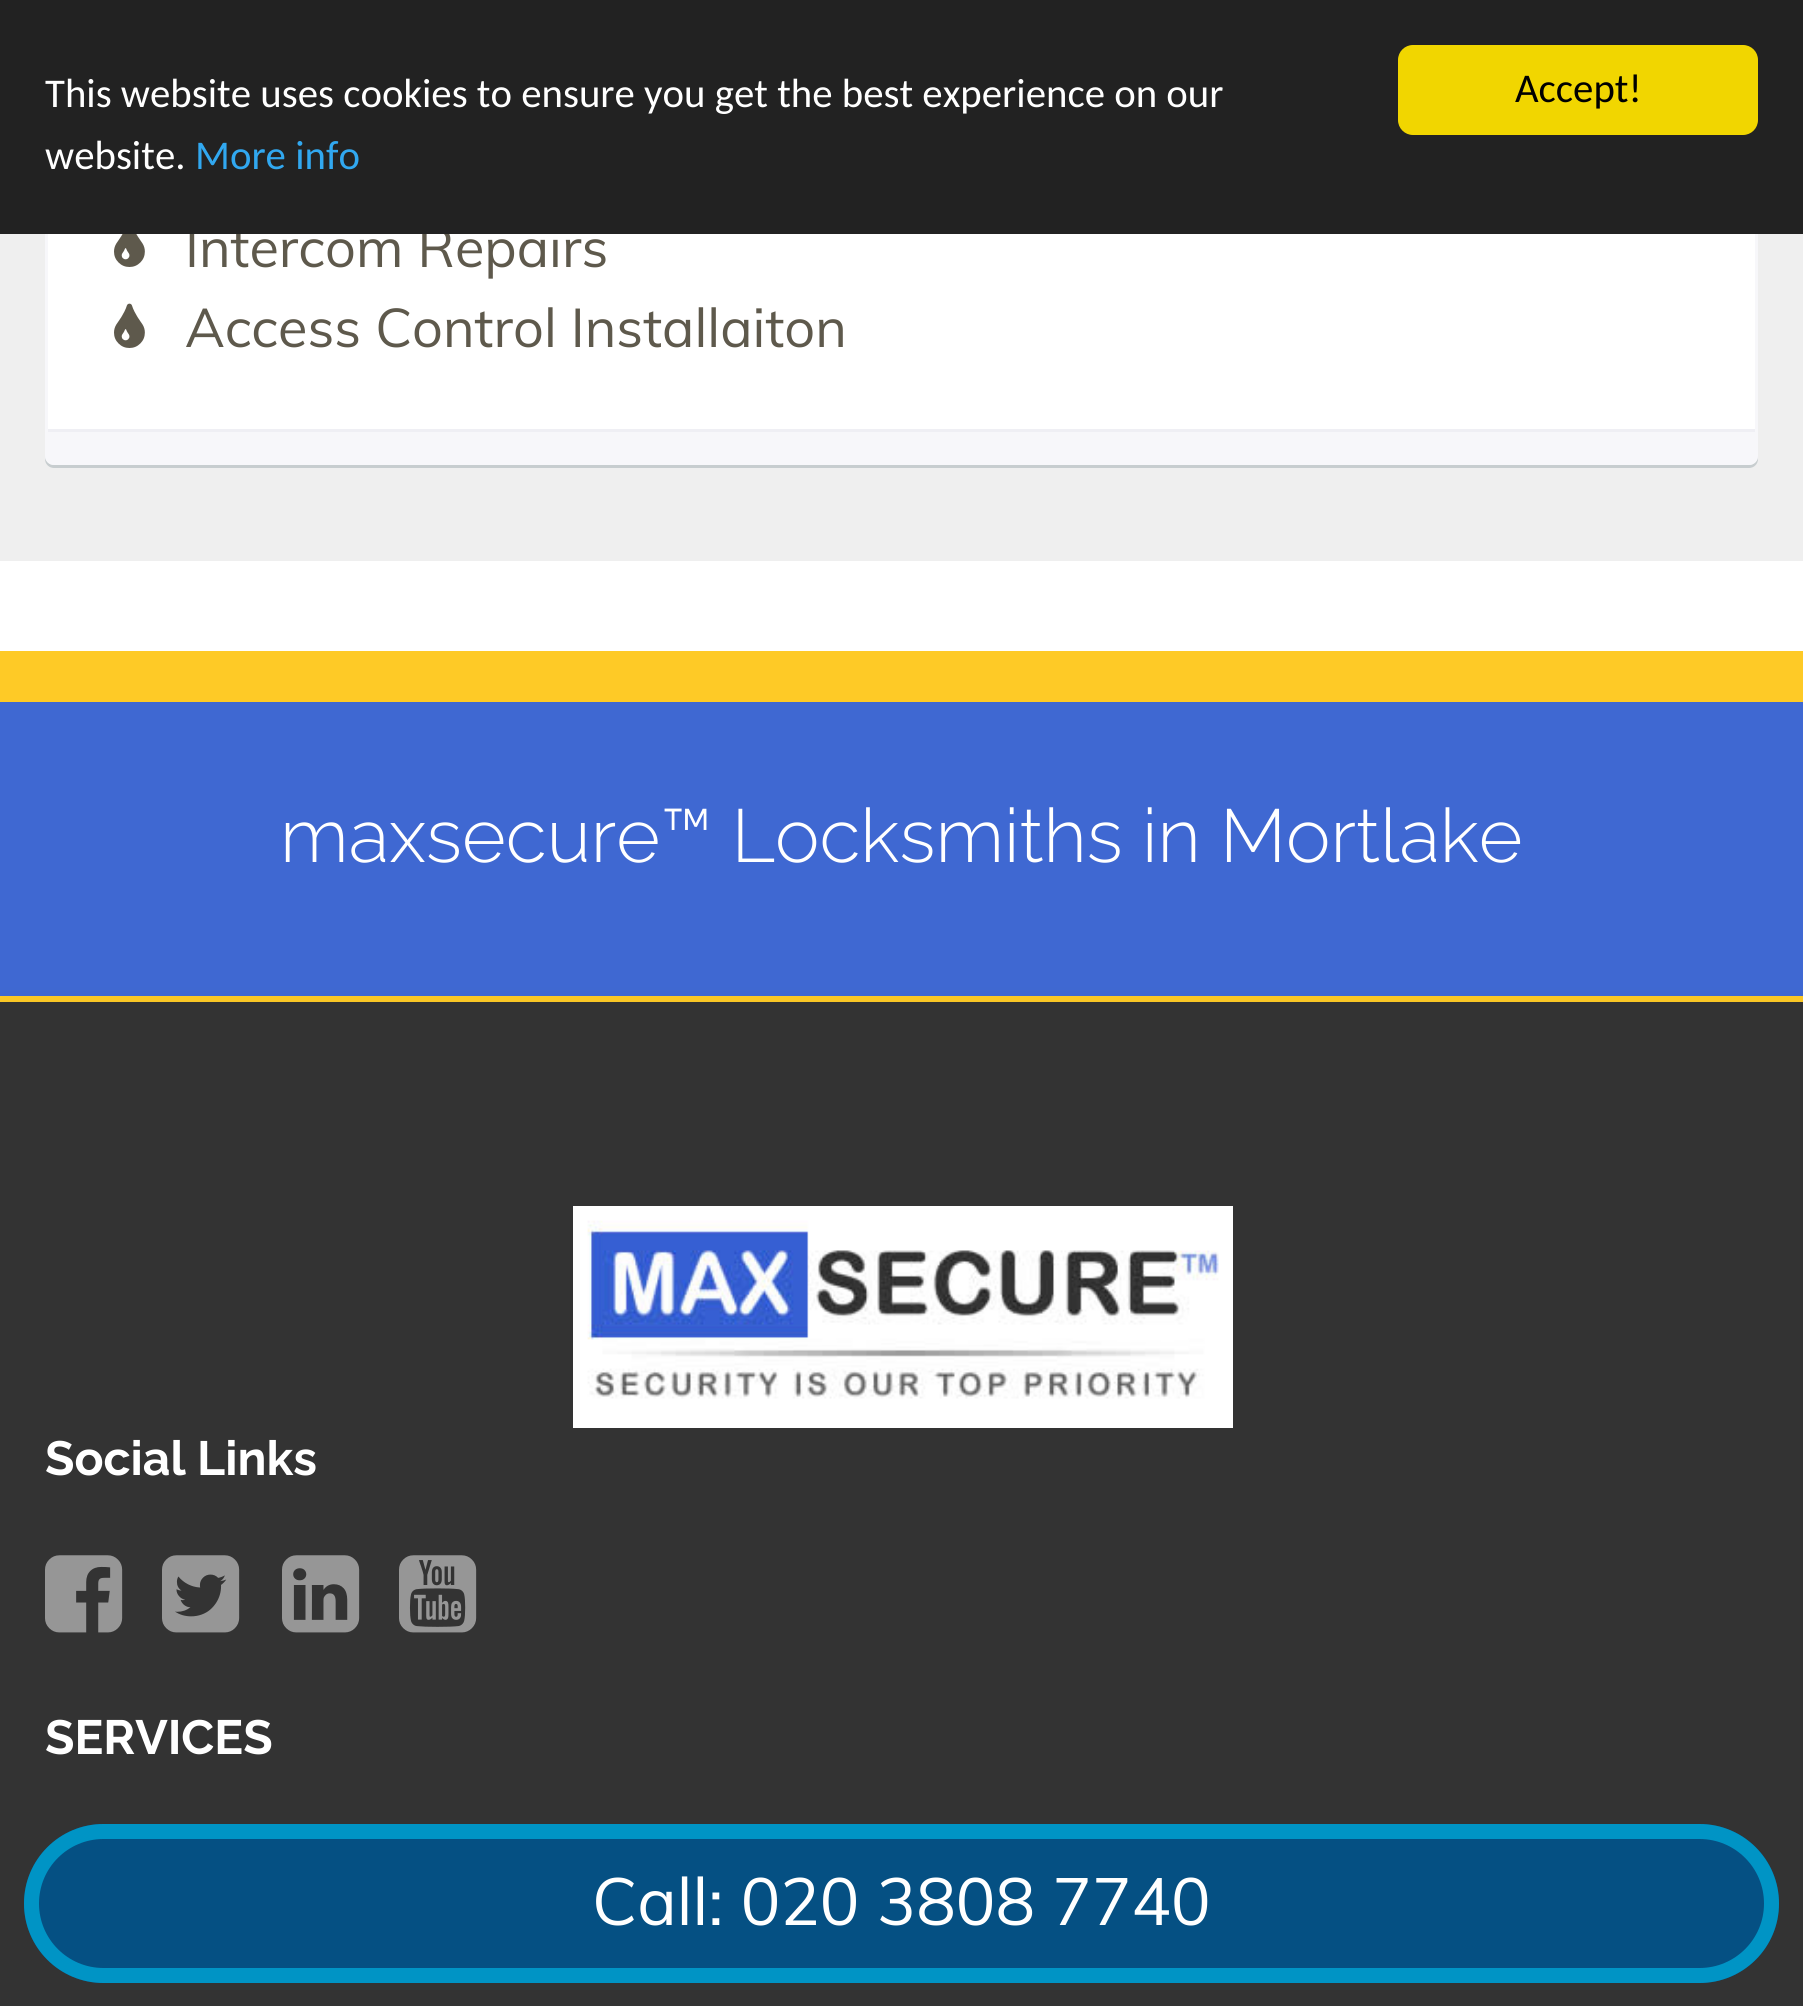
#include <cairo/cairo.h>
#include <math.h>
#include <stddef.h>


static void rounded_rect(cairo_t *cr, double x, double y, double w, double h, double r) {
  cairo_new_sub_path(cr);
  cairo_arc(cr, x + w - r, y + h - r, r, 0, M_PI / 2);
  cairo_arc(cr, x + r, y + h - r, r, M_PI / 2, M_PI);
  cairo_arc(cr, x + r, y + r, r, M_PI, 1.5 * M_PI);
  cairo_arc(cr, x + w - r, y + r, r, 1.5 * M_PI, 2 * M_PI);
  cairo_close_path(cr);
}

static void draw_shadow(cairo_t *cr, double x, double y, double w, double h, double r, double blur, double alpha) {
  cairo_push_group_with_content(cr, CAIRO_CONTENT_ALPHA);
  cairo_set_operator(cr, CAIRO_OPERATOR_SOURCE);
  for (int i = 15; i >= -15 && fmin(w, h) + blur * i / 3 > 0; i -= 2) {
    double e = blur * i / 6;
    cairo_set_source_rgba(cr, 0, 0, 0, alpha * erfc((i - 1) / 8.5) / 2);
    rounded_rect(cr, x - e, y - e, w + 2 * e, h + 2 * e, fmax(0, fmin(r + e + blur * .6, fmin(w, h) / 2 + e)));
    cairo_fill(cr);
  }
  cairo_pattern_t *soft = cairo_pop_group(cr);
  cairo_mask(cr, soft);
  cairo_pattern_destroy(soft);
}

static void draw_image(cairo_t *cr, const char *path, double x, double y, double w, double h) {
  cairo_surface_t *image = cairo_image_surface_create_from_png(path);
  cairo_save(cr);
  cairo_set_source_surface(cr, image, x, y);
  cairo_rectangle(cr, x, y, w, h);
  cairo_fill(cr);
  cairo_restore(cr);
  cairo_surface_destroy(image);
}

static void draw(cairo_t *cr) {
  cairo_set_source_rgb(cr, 1, 1, 1);
  cairo_paint(cr);
  cairo_set_source_rgb(cr, 239 / 255.0, 239 / 255.0, 239 / 255.0);
  cairo_rectangle(cr, 0, 234, 1803, 327);
  cairo_fill(cr);
  cairo_set_source_rgb(cr, 199 / 255.0, 205 / 255.0, 207 / 255.0);
  cairo_new_path(cr);
  cairo_move_to(cr, 45, 456);
  cairo_line_to(cr, 45, 459);
  cairo_curve_to(cr, 45, 464, 49, 468, 54, 468);
  cairo_line_to(cr, 1749, 468);
  cairo_curve_to(cr, 1754, 468, 1758, 464, 1758, 459);
  cairo_line_to(cr, 1758, 456);
  cairo_curve_to(cr, 1758, 461, 1754, 465, 1749, 465);
  cairo_line_to(cr, 54, 465);
  cairo_curve_to(cr, 49, 465, 45, 461, 45, 456);
  cairo_close_path(cr);
  cairo_fill(cr);
  cairo_set_source_rgb(cr, 247 / 255.0, 247 / 255.0, 250 / 255.0);
  rounded_rect(cr, 45, -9, 1713, 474, 9);
  cairo_fill(cr);
  cairo_set_source_rgb(cr, 1, 1, 1);
  cairo_rectangle(cr, 48, 234, 1707, 195);
  cairo_fill(cr);
  cairo_set_source_rgb(cr, 239 / 255.0, 239 / 255.0, 244 / 255.0);
  cairo_rectangle(cr, 48, 429, 1707, 3);
  cairo_fill(cr);
  draw_image(cr, "images/1.png", 114, 234, 31, 33);
  draw_image(cr, "images/2.png", 114, 303, 31, 45);
  cairo_set_source_rgb(cr, 63 / 255.0, 104 / 255.0, 210 / 255.0);
  cairo_rectangle(cr, 0, 702, 1803, 294);
  cairo_fill(cr);
  cairo_set_source_rgb(cr, 254 / 255.0, 202 / 255.0, 38 / 255.0);
  cairo_rectangle(cr, 0, 651, 1803, 51);
  cairo_fill(cr);
  cairo_rectangle(cr, 0, 996, 1803, 6);
  cairo_fill(cr);
  cairo_set_source_rgb(cr, 0, 0, 0);
  draw_shadow(cr, 0, 1014, 1803, 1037, 0, 15, 0.1);
  cairo_set_source_rgb(cr, 51 / 255.0, 51 / 255.0, 51 / 255.0);
  cairo_rectangle(cr, 0, 1002, 1803, 1004);
  cairo_fill(cr);
  draw_image(cr, "images/3.png", 573, 1206, 660, 222);
  draw_image(cr, "images/4.png", 45, 1555, 78, 78);
  draw_image(cr, "images/5.png", 162, 1555, 78, 78);
  draw_image(cr, "images/6.png", 282, 1555, 78, 78);
  draw_image(cr, "images/7.png", 399, 1555, 78, 78);
  cairo_set_source_rgba(cr, 1 / 255.0, 84 / 255.0, 140 / 255.0, 0.9);
  rounded_rect(cr, 24, 1824, 1755, 159, 79.5);
  cairo_fill(cr);
  rounded_rect(cr, 31.5, 1831.5, 1740, 144, 72);
  cairo_set_source_rgba(cr, 0, 156 / 255.0, 204 / 255.0, 0.9);
  cairo_set_line_width(cr, 15);
  cairo_stroke(cr);
  cairo_select_font_face(cr, "Muli", CAIRO_FONT_SLANT_NORMAL, CAIRO_FONT_WEIGHT_NORMAL);
  cairo_set_font_size(cr, 54);
  cairo_set_source_rgb(cr, 94 / 255.0, 89 / 255.0, 76 / 255.0);
  cairo_move_to(cr, 185, 267);
  cairo_show_text(cr, "Intercom Repairs");
  cairo_set_source_rgb(cr, 34 / 255.0, 34 / 255.0, 34 / 255.0);
  cairo_rectangle(cr, 0, 0, 1803, 234);
  cairo_fill(cr);
  cairo_select_font_face(cr, "Carlito", CAIRO_FONT_SLANT_NORMAL, CAIRO_FONT_WEIGHT_NORMAL);
  cairo_set_font_size(cr, 40.8);
  cairo_set_source_rgb(cr, 49 / 255.0, 168 / 255.0, 240 / 255.0);
  cairo_move_to(cr, 195, 169);
  cairo_show_text(cr, "More info");
  cairo_set_source_rgb(cr, 1, 1, 1);
  cairo_move_to(cr, 45, 169);
  cairo_show_text(cr, "website.");
  cairo_move_to(cr, 45, 107);
  cairo_show_text(cr, "This website uses cookies to ensure you get the best experience on our");
  cairo_set_source_rgb(cr, 241 / 255.0, 214 / 255.0, 0);
  rounded_rect(cr, 1398, 45, 360, 90, 15);
  cairo_fill(cr);
  cairo_set_source_rgb(cr, 0, 0, 0);
  cairo_move_to(cr, 1515, 102);
  cairo_show_text(cr, "Accept!");
  cairo_select_font_face(cr, "Muli", CAIRO_FONT_SLANT_NORMAL, CAIRO_FONT_WEIGHT_NORMAL);
  cairo_set_font_size(cr, 54);
  cairo_set_source_rgb(cr, 94 / 255.0, 89 / 255.0, 76 / 255.0);
  cairo_move_to(cr, 185, 347);
  cairo_show_text(cr, "Access Control Installaiton");
  cairo_select_font_face(cr, "Raleway Light", CAIRO_FONT_SLANT_NORMAL, CAIRO_FONT_WEIGHT_NORMAL);
  cairo_set_font_size(cr, 75);
  cairo_set_source_rgb(cr, 1, 1, 1);
  cairo_move_to(cr, 280, 862);
  cairo_show_text(cr, "maxsecure™ Locksmiths in Mortlake");
  cairo_select_font_face(cr, "Raleway", CAIRO_FONT_SLANT_NORMAL, CAIRO_FONT_WEIGHT_BOLD);
  cairo_set_font_size(cr, 48);
  cairo_move_to(cr, 45, 1475);
  cairo_show_text(cr, "Social Links");
  cairo_move_to(cr, 45, 1754);
  cairo_show_text(cr, "SERVICES");
  cairo_select_font_face(cr, "Muli", CAIRO_FONT_SLANT_NORMAL, CAIRO_FONT_WEIGHT_NORMAL);
  cairo_set_font_size(cr, 66);
  cairo_move_to(cr, 592, 1925);
  cairo_show_text(cr, "Call: 020 3808 7740");
}

int main(void) {
  cairo_surface_t *surface = cairo_image_surface_create(CAIRO_FORMAT_RGB24, 1803, 2006);
  cairo_t *cr = cairo_create(surface);
  cairo_font_options_t *options = cairo_font_options_create();
  cairo_font_options_set_hint_metrics(options, CAIRO_HINT_METRICS_OFF);
  cairo_font_options_set_hint_style(options, CAIRO_HINT_STYLE_NONE);
  cairo_set_font_options(cr, options);
  cairo_set_miter_limit(cr, 4);
  draw(cr);
  cairo_surface_write_to_png(surface, "out.png");
  cairo_font_options_destroy(options);
  cairo_destroy(cr);
  cairo_surface_destroy(surface);
  return 0;
}
